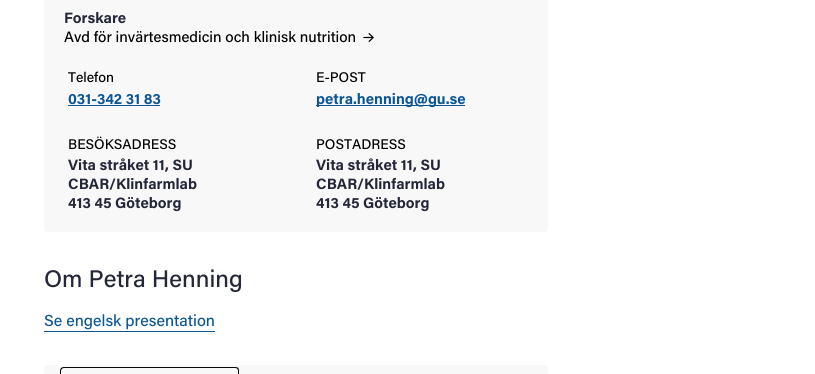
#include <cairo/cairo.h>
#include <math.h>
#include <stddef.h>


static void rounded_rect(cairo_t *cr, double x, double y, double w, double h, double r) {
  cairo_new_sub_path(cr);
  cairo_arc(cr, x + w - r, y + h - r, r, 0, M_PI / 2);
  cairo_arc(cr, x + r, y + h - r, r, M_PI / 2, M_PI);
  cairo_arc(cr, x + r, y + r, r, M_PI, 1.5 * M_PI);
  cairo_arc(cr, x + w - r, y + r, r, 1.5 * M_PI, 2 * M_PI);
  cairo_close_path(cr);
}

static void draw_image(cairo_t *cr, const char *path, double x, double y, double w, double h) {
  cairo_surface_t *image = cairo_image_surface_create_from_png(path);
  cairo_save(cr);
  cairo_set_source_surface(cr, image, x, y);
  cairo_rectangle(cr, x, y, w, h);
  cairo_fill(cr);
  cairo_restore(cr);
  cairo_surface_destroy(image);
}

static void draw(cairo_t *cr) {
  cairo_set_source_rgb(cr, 1, 1, 1);
  cairo_paint(cr);
  cairo_set_source_rgb(cr, 248 / 255.0, 248 / 255.0, 248 / 255.0);
  rounded_rect(cr, 44, -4, 504, 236, 4);
  cairo_fill(cr);
  draw_image(cr, "images/1.png", 363, 33, 11, 9);
  cairo_set_source_rgb(cr, 12 / 255.0, 86 / 255.0, 150 / 255.0);
  cairo_rectangle(cr, 68, 105, 92, 1);
  cairo_fill(cr);
  cairo_rectangle(cr, 316, 105, 149, 1);
  cairo_fill(cr);
  cairo_rectangle(cr, 44, 331, 171, 1);
  cairo_fill(cr);
  cairo_set_source_rgb(cr, 248 / 255.0, 248 / 255.0, 248 / 255.0);
  rounded_rect(cr, 44, 365, 504, 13, 4);
  cairo_fill(cr);
  cairo_set_source_rgb(cr, 10 / 255.0, 10 / 255.0, 10 / 255.0);
  cairo_set_fill_rule(cr, CAIRO_FILL_RULE_EVEN_ODD);
  cairo_new_path(cr);
  cairo_move_to(cr, 64, 367);
  cairo_line_to(cr, 235, 367);
  cairo_curve_to(cr, 238, 367, 239, 368, 239, 371);
  cairo_line_to(cr, 239, 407);
  cairo_line_to(cr, 60, 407);
  cairo_line_to(cr, 60, 371);
  cairo_curve_to(cr, 60, 368, 62, 367, 64, 367);
  cairo_close_path(cr);
  cairo_move_to(cr, 64, 368);
  cairo_line_to(cr, 235, 368);
  cairo_curve_to(cr, 237, 368, 238, 369, 238, 371);
  cairo_line_to(cr, 238, 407);
  cairo_line_to(cr, 61, 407);
  cairo_line_to(cr, 61, 371);
  cairo_curve_to(cr, 61, 369, 63, 368, 64, 368);
  cairo_close_path(cr);
  cairo_fill(cr);
  cairo_select_font_face(cr, "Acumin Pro", CAIRO_FONT_SLANT_NORMAL, CAIRO_FONT_WEIGHT_BOLD);
  cairo_set_font_size(cr, 15);
  cairo_set_source_rgb(cr, 36 / 255.0, 39 / 255.0, 58 / 255.0);
  cairo_move_to(cr, 64, 23);
  cairo_show_text(cr, "Forskare");
  cairo_select_font_face(cr, "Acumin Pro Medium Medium", CAIRO_FONT_SLANT_NORMAL, CAIRO_FONT_WEIGHT_NORMAL);
  cairo_set_source_rgb(cr, 0, 0, 0);
  cairo_move_to(cr, 64, 42);
  cairo_show_text(cr, "Avd för invärtesmedicin och klinisk nutrition");
  cairo_set_font_size(cr, 14);
  cairo_move_to(cr, 68, 82);
  cairo_show_text(cr, "Telefon");
  cairo_select_font_face(cr, "Acumin Pro", CAIRO_FONT_SLANT_NORMAL, CAIRO_FONT_WEIGHT_BOLD);
  cairo_set_font_size(cr, 15);
  cairo_set_source_rgb(cr, 12 / 255.0, 86 / 255.0, 150 / 255.0);
  cairo_move_to(cr, 68, 104);
  cairo_show_text(cr, "031-342 31 83");
  cairo_select_font_face(cr, "Acumin Pro Medium Medium", CAIRO_FONT_SLANT_NORMAL, CAIRO_FONT_WEIGHT_NORMAL);
  cairo_set_font_size(cr, 14);
  cairo_set_source_rgb(cr, 0, 0, 0);
  cairo_move_to(cr, 316, 82);
  cairo_show_text(cr, "E-POST");
  cairo_select_font_face(cr, "Acumin Pro", CAIRO_FONT_SLANT_NORMAL, CAIRO_FONT_WEIGHT_BOLD);
  cairo_set_font_size(cr, 15);
  cairo_set_source_rgb(cr, 12 / 255.0, 86 / 255.0, 150 / 255.0);
  cairo_move_to(cr, 316, 104);
  cairo_show_text(cr, "petra.henning@gu.se");
  cairo_select_font_face(cr, "Acumin Pro Medium Medium", CAIRO_FONT_SLANT_NORMAL, CAIRO_FONT_WEIGHT_NORMAL);
  cairo_set_font_size(cr, 14);
  cairo_set_source_rgb(cr, 0, 0, 0);
  cairo_move_to(cr, 68, 149);
  cairo_show_text(cr, "BESÖKSADRESS");
  cairo_select_font_face(cr, "Acumin Pro", CAIRO_FONT_SLANT_NORMAL, CAIRO_FONT_WEIGHT_BOLD);
  cairo_set_font_size(cr, 15);
  cairo_set_source_rgb(cr, 36 / 255.0, 39 / 255.0, 58 / 255.0);
  cairo_move_to(cr, 68, 170);
  cairo_show_text(cr, "Vita stråket 11, SU");
  cairo_move_to(cr, 68, 189);
  cairo_show_text(cr, "CBAR/Klinfarmlab");
  cairo_move_to(cr, 68, 208);
  cairo_show_text(cr, "413 45 Göteborg");
  cairo_select_font_face(cr, "Acumin Pro Medium Medium", CAIRO_FONT_SLANT_NORMAL, CAIRO_FONT_WEIGHT_NORMAL);
  cairo_set_font_size(cr, 14);
  cairo_set_source_rgb(cr, 0, 0, 0);
  cairo_move_to(cr, 316, 149);
  cairo_show_text(cr, "POSTADRESS");
  cairo_select_font_face(cr, "Acumin Pro", CAIRO_FONT_SLANT_NORMAL, CAIRO_FONT_WEIGHT_BOLD);
  cairo_set_font_size(cr, 15);
  cairo_set_source_rgb(cr, 36 / 255.0, 39 / 255.0, 58 / 255.0);
  cairo_move_to(cr, 316, 170);
  cairo_show_text(cr, "Vita stråket 11, SU");
  cairo_move_to(cr, 316, 189);
  cairo_show_text(cr, "CBAR/Klinfarmlab");
  cairo_move_to(cr, 316, 208);
  cairo_show_text(cr, "413 45 Göteborg");
  cairo_select_font_face(cr, "Acumin Pro Medium Medium", CAIRO_FONT_SLANT_NORMAL, CAIRO_FONT_WEIGHT_NORMAL);
  cairo_set_font_size(cr, 24);
  cairo_move_to(cr, 44, 287);
  cairo_show_text(cr, "Om Petra Henning");
  cairo_set_font_size(cr, 16);
  cairo_set_source_rgb(cr, 12 / 255.0, 86 / 255.0, 150 / 255.0);
  cairo_move_to(cr, 44, 326);
  cairo_show_text(cr, "Se engelsk presentation");
}

int main(void) {
  cairo_surface_t *surface = cairo_image_surface_create(CAIRO_FORMAT_RGB24, 815, 374);
  cairo_t *cr = cairo_create(surface);
  cairo_font_options_t *options = cairo_font_options_create();
  cairo_font_options_set_hint_metrics(options, CAIRO_HINT_METRICS_OFF);
  cairo_font_options_set_hint_style(options, CAIRO_HINT_STYLE_NONE);
  cairo_set_font_options(cr, options);
  cairo_set_miter_limit(cr, 4);
  draw(cr);
  cairo_surface_write_to_png(surface, "out.png");
  cairo_font_options_destroy(options);
  cairo_destroy(cr);
  cairo_surface_destroy(surface);
  return 0;
}
